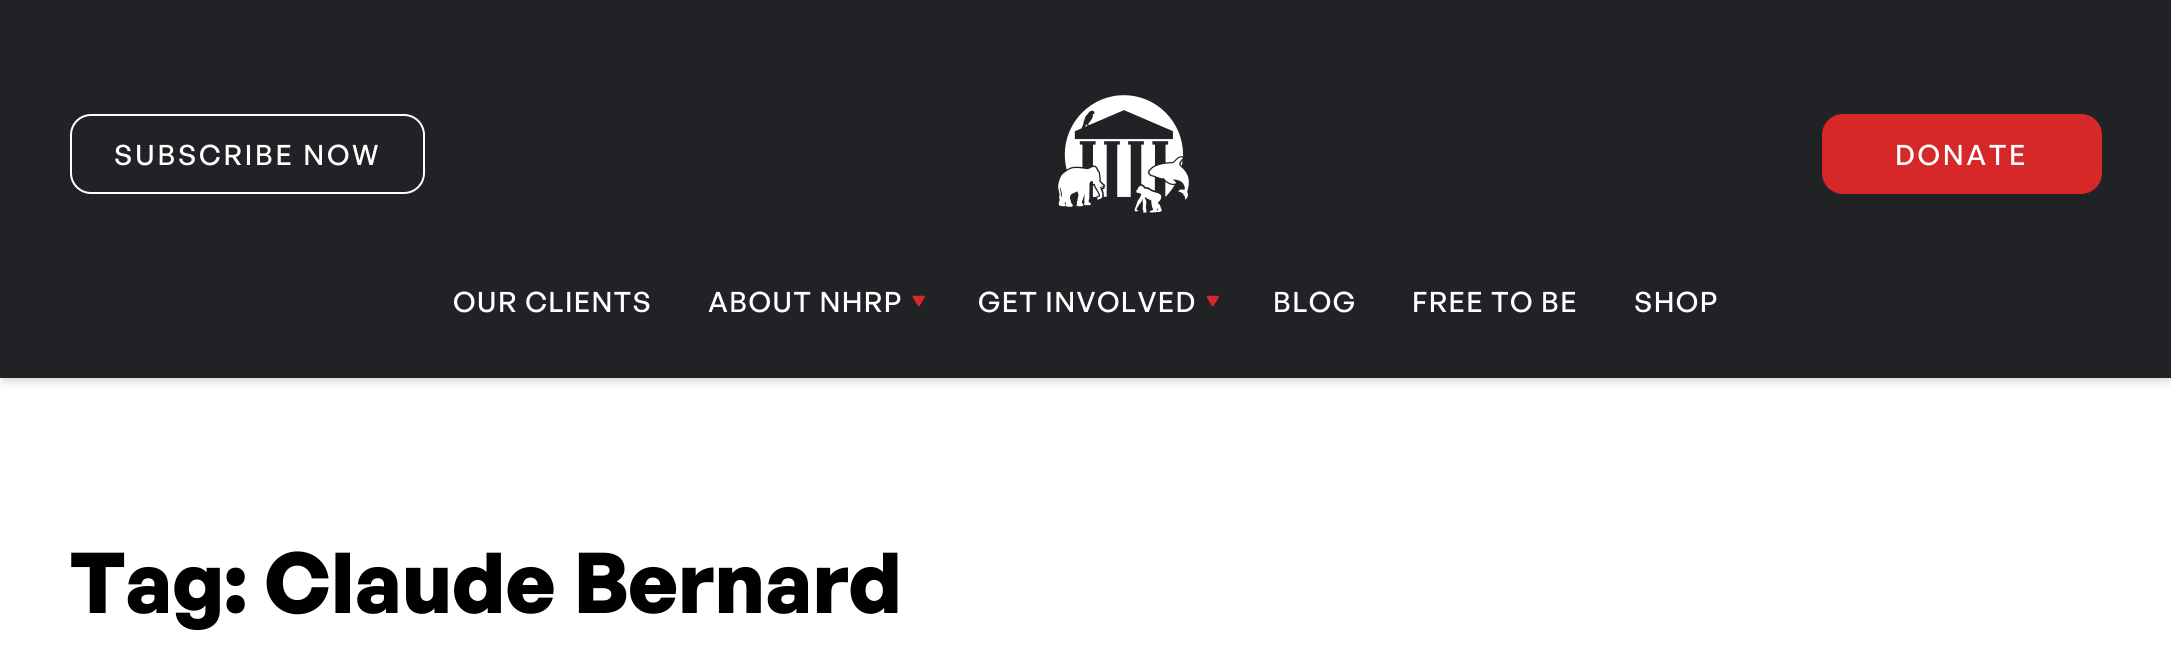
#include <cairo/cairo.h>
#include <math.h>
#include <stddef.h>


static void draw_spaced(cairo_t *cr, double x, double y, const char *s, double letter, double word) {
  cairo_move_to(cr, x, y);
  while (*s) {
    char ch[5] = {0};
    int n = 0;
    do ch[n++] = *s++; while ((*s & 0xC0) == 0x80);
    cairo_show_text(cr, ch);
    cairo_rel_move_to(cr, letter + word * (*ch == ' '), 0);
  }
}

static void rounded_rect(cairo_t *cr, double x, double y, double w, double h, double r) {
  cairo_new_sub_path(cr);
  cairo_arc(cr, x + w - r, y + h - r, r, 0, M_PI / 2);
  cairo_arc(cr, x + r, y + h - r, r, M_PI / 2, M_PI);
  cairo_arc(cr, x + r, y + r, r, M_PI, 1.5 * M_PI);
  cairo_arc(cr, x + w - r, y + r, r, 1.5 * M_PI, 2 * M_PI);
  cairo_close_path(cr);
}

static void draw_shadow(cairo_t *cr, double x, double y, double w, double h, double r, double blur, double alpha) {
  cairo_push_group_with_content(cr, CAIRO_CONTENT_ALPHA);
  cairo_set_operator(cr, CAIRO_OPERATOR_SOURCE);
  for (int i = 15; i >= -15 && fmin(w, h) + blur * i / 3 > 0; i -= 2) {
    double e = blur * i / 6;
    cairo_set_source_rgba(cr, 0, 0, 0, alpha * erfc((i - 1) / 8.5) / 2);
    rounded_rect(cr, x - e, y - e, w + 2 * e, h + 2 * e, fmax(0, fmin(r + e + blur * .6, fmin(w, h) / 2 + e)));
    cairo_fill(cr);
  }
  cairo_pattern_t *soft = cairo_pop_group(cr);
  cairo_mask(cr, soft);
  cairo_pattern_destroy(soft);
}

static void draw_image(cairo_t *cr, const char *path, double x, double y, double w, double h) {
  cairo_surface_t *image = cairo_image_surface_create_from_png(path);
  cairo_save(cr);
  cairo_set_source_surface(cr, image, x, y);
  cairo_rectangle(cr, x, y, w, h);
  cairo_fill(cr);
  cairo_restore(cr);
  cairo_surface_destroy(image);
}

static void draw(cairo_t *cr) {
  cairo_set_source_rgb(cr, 1, 1, 1);
  cairo_paint(cr);
  cairo_set_source_rgb(cr, 0, 0, 0);
  draw_shadow(cr, 4, 7, 2164, 371, 0, 3.5, 0.1);
  draw_shadow(cr, 2, 9, 2168, 374, 0, 5, 0.1);
  cairo_set_source_rgb(cr, 33 / 255.0, 34 / 255.0, 38 / 255.0);
  cairo_rectangle(cr, 0, 0, 2171, 378);
  cairo_fill(cr);
  rounded_rect(cr, 71, 115, 353, 78, 20);
  cairo_set_source_rgb(cr, 1, 1, 1);
  cairo_stroke(cr);
  draw_image(cr, "images/1.png", 1058, 95, 131, 118);
  cairo_set_source_rgb(cr, 214 / 255.0, 40 / 255.0, 40 / 255.0);
  rounded_rect(cr, 1822, 114, 280, 80, 21);
  cairo_fill(cr);
  draw_image(cr, "images/2.png", 912, 295, 13, 12);
  draw_image(cr, "images/2.png", 1206, 295, 13, 12);
  cairo_select_font_face(cr, "General Sans Medium", CAIRO_FONT_SLANT_NORMAL, CAIRO_FONT_WEIGHT_NORMAL);
  cairo_set_font_size(cr, 28);
  cairo_set_source_rgb(cr, 1, 1, 1);
  draw_spaced(cr, 114, 165, "SUBSCRIBE NOW", 2.75, 0);
  draw_spaced(cr, 1895, 165, "DONATE", 2.75, 0);
  draw_spaced(cr, 453, 312, "OUR CLIENTS", 1.4, 0);
  draw_spaced(cr, 708, 312, "ABOUT NHRP", 1.4, 0);
  draw_spaced(cr, 978, 312, "GET INVOLVED", 1.4, 0);
  draw_spaced(cr, 1273, 312, "BLOG", 1.4, 0);
  draw_spaced(cr, 1412, 312, "FREE TO BE", 1.4, 0);
  draw_spaced(cr, 1634, 312, "SHOP", 1.4, 0);
  cairo_select_font_face(cr, "General Sans", CAIRO_FONT_SLANT_NORMAL, CAIRO_FONT_WEIGHT_BOLD);
  cairo_set_font_size(cr, 84);
  cairo_set_source_rgb(cr, 0, 0, 0);
  cairo_move_to(cr, 70, 613);
  cairo_show_text(cr, "Tag: Claude Bernard");
}

int main(void) {
  cairo_surface_t *surface = cairo_image_surface_create(CAIRO_FORMAT_RGB24, 2171, 649);
  cairo_t *cr = cairo_create(surface);
  cairo_font_options_t *options = cairo_font_options_create();
  cairo_font_options_set_hint_metrics(options, CAIRO_HINT_METRICS_OFF);
  cairo_font_options_set_hint_style(options, CAIRO_HINT_STYLE_NONE);
  cairo_set_font_options(cr, options);
  cairo_set_miter_limit(cr, 4);
  draw(cr);
  cairo_surface_write_to_png(surface, "out.png");
  cairo_font_options_destroy(options);
  cairo_destroy(cr);
  cairo_surface_destroy(surface);
  return 0;
}
